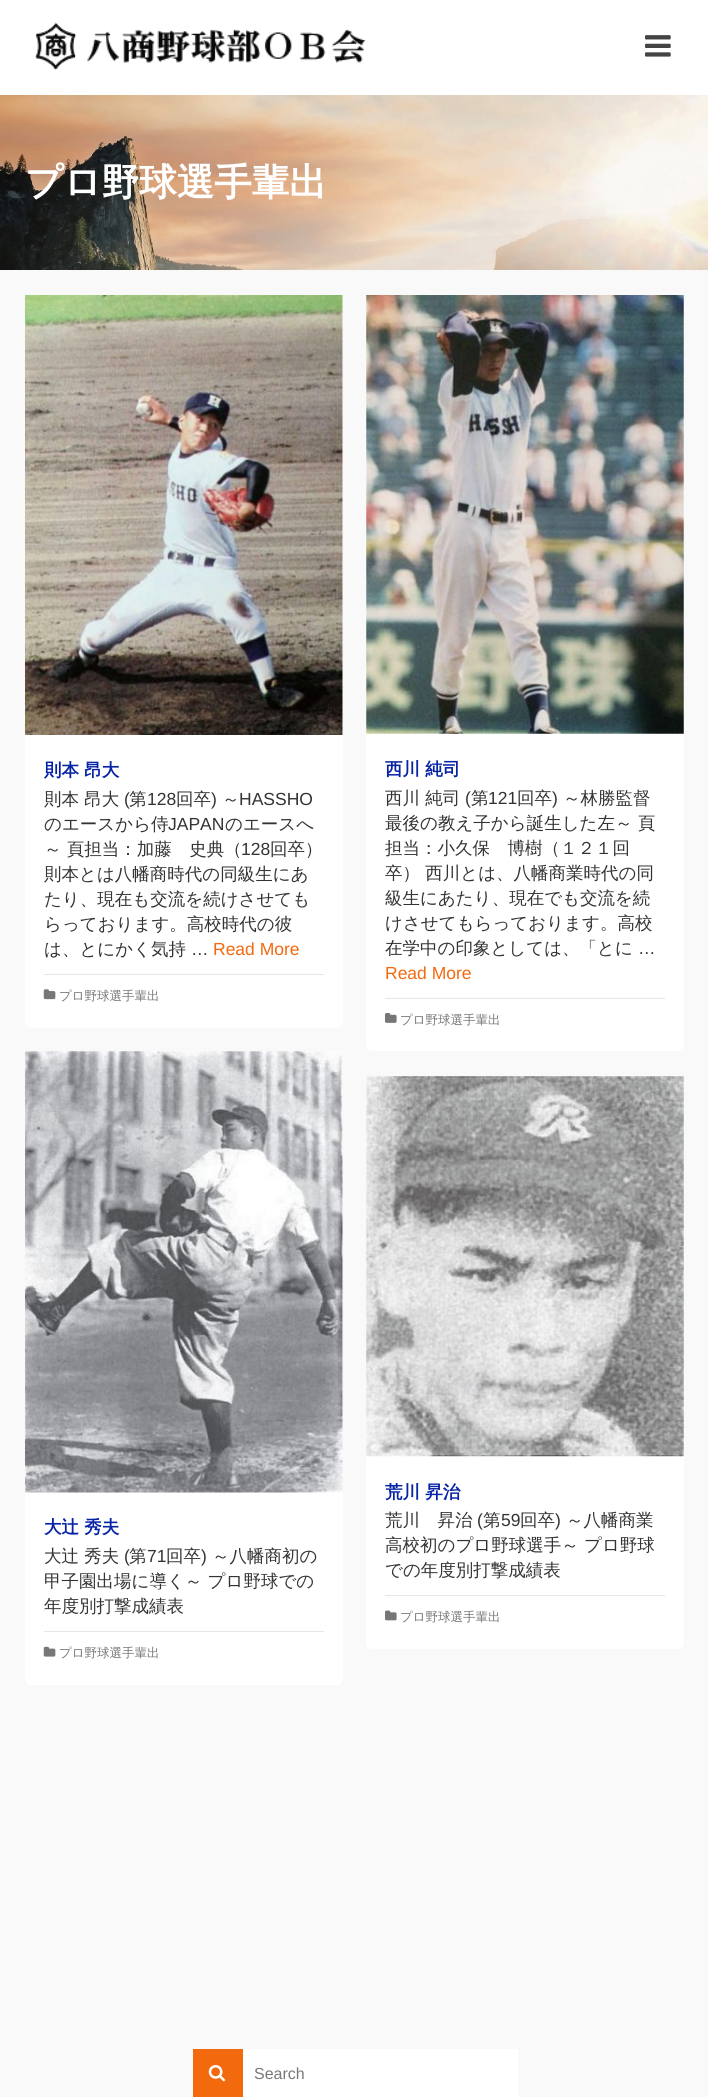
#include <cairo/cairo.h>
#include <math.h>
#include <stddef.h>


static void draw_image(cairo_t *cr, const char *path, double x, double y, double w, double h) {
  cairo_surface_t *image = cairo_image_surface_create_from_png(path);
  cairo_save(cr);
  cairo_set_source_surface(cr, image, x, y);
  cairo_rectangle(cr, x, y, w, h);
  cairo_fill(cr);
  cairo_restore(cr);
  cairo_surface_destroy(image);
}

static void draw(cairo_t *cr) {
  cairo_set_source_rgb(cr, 1, 1, 1);
  cairo_paint(cr);
  draw_image(cr, "images/1.png", 35, 22, 331, 48);
  draw_image(cr, "images/2.png", 645, 35, 26, 22);
  cairo_set_source_rgb(cr, 249 / 255.0, 249 / 255.0, 249 / 255.0);
  cairo_rectangle(cr, 0, 270, 708, 1827);
  cairo_fill(cr);
  draw_image(cr, "images/3.png", 0, 95, 708, 175);
  cairo_set_source_rgb(cr, 1, 1, 1);
  cairo_new_path(cr);
  cairo_move_to(cr, 25, 295);
  cairo_line_to(cr, 343, 295);
  cairo_line_to(cr, 343, 1022);
  cairo_curve_to(cr, 343, 1025.5, 340.5, 1028, 337, 1028);
  cairo_line_to(cr, 31, 1028);
  cairo_curve_to(cr, 27.5, 1028, 25, 1025.5, 25, 1022);
  cairo_close_path(cr);
  cairo_fill(cr);
  draw_image(cr, "images/4.png", 25, 295, 318, 440);
  cairo_set_source_rgb(cr, 230 / 255.0, 230 / 255.0, 230 / 255.0);
  cairo_rectangle(cr, 44, 974, 280, 1);
  cairo_fill(cr);
  draw_image(cr, "images/5.png", 43, 989, 13, 11);
  cairo_set_source_rgb(cr, 1, 1, 1);
  cairo_new_path(cr);
  cairo_move_to(cr, 366, 295);
  cairo_line_to(cr, 684, 295);
  cairo_line_to(cr, 684, 1045);
  cairo_curve_to(cr, 684, 1048.5, 681.5, 1051, 678, 1051);
  cairo_line_to(cr, 372, 1051);
  cairo_curve_to(cr, 368.5, 1051, 366, 1048.5, 366, 1045);
  cairo_close_path(cr);
  cairo_fill(cr);
  draw_image(cr, "images/6.png", 366, 295, 318, 439);
  cairo_set_source_rgb(cr, 230 / 255.0, 230 / 255.0, 230 / 255.0);
  cairo_rectangle(cr, 385, 998, 280, 1);
  cairo_fill(cr);
  draw_image(cr, "images/7.png", 385, 1013, 12, 10);
  cairo_set_source_rgb(cr, 1, 1, 1);
  cairo_new_path(cr);
  cairo_move_to(cr, 25, 1051);
  cairo_line_to(cr, 343, 1051);
  cairo_line_to(cr, 343, 1679);
  cairo_curve_to(cr, 343, 1682.5, 340.5, 1685, 337, 1685);
  cairo_line_to(cr, 31, 1685);
  cairo_curve_to(cr, 27.5, 1685, 25, 1682.5, 25, 1679);
  cairo_close_path(cr);
  cairo_fill(cr);
  draw_image(cr, "images/8.png", 25, 1051, 318, 442);
  cairo_set_source_rgb(cr, 230 / 255.0, 230 / 255.0, 230 / 255.0);
  cairo_rectangle(cr, 44, 1631, 280, 1);
  cairo_fill(cr);
  draw_image(cr, "images/9.png", 43, 1646, 13, 11);
  cairo_set_source_rgb(cr, 1, 1, 1);
  cairo_new_path(cr);
  cairo_move_to(cr, 366, 1076);
  cairo_line_to(cr, 684, 1076);
  cairo_line_to(cr, 684, 1643);
  cairo_curve_to(cr, 684, 1646.5, 681.5, 1649, 678, 1649);
  cairo_line_to(cr, 372, 1649);
  cairo_curve_to(cr, 368.5, 1649, 366, 1646.5, 366, 1643);
  cairo_close_path(cr);
  cairo_fill(cr);
  draw_image(cr, "images/10.png", 366, 1076, 318, 381);
  cairo_set_source_rgb(cr, 230 / 255.0, 230 / 255.0, 230 / 255.0);
  cairo_rectangle(cr, 385, 1595, 280, 1);
  cairo_fill(cr);
  draw_image(cr, "images/11.png", 385, 1610, 12, 11);
  cairo_set_source_rgb(cr, 243 / 255.0, 105 / 255.0, 14 / 255.0);
  cairo_rectangle(cr, 193, 2049, 50, 48);
  cairo_fill(cr);
  draw_image(cr, "images/12.png", 208, 2065, 17, 17);
  cairo_set_source_rgb(cr, 1, 1, 1);
  cairo_rectangle(cr, 243, 2049, 275, 48);
  cairo_fill(cr);
  cairo_select_font_face(cr, "WenQuanYi Zen Hei", CAIRO_FONT_SLANT_NORMAL, CAIRO_FONT_WEIGHT_BOLD);
  cairo_set_font_size(cr, 37.5);
  cairo_move_to(cr, 25, 195);
  cairo_show_text(cr, "プロ野球選手輩出");
  cairo_set_font_size(cr, 17.5);
  cairo_set_source_rgb(cr, 6 / 255.0, 35 / 255.0, 165 / 255.0);
  cairo_move_to(cr, 44, 776);
  cairo_show_text(cr, "則本 昂大");
  cairo_select_font_face(cr, "WenQuanYi Zen Hei Medium", CAIRO_FONT_SLANT_NORMAL, CAIRO_FONT_WEIGHT_NORMAL);
  cairo_set_source_rgb(cr, 51 / 255.0, 51 / 255.0, 51 / 255.0);
  cairo_move_to(cr, 44, 805);
  cairo_show_text(cr, "則本 昂大");
  cairo_select_font_face(cr, "Liberation Sans", CAIRO_FONT_SLANT_NORMAL, CAIRO_FONT_WEIGHT_NORMAL);
  cairo_move_to(cr, 124, 805);
  cairo_show_text(cr, "(");
  cairo_select_font_face(cr, "WenQuanYi Zen Hei Medium", CAIRO_FONT_SLANT_NORMAL, CAIRO_FONT_WEIGHT_NORMAL);
  cairo_move_to(cr, 129, 805);
  cairo_show_text(cr, "第");
  cairo_select_font_face(cr, "Liberation Sans", CAIRO_FONT_SLANT_NORMAL, CAIRO_FONT_WEIGHT_NORMAL);
  cairo_move_to(cr, 147, 805);
  cairo_show_text(cr, "128");
  cairo_select_font_face(cr, "WenQuanYi Zen Hei Medium", CAIRO_FONT_SLANT_NORMAL, CAIRO_FONT_WEIGHT_NORMAL);
  cairo_move_to(cr, 176, 805);
  cairo_show_text(cr, "回卒");
  cairo_select_font_face(cr, "Liberation Sans", CAIRO_FONT_SLANT_NORMAL, CAIRO_FONT_WEIGHT_NORMAL);
  cairo_move_to(cr, 211, 805);
  cairo_show_text(cr, ")");
  cairo_select_font_face(cr, "WenQuanYi Zen Hei Medium", CAIRO_FONT_SLANT_NORMAL, CAIRO_FONT_WEIGHT_NORMAL);
  cairo_move_to(cr, 222, 805);
  cairo_show_text(cr, "～");
  cairo_select_font_face(cr, "Liberation Sans", CAIRO_FONT_SLANT_NORMAL, CAIRO_FONT_WEIGHT_NORMAL);
  cairo_move_to(cr, 239, 805);
  cairo_show_text(cr, "HASSHO");
  cairo_select_font_face(cr, "WenQuanYi Zen Hei Medium", CAIRO_FONT_SLANT_NORMAL, CAIRO_FONT_WEIGHT_NORMAL);
  cairo_move_to(cr, 44, 830);
  cairo_show_text(cr, "のエースから侍");
  cairo_select_font_face(cr, "Liberation Sans", CAIRO_FONT_SLANT_NORMAL, CAIRO_FONT_WEIGHT_NORMAL);
  cairo_move_to(cr, 168, 830);
  cairo_show_text(cr, "JAPAN");
  cairo_select_font_face(cr, "WenQuanYi Zen Hei Medium", CAIRO_FONT_SLANT_NORMAL, CAIRO_FONT_WEIGHT_NORMAL);
  cairo_move_to(cr, 225, 830);
  cairo_show_text(cr, "のエースへ");
  cairo_move_to(cr, 44, 855);
  cairo_show_text(cr, "～ 頁担当：加藤　史典（");
  cairo_select_font_face(cr, "Liberation Sans", CAIRO_FONT_SLANT_NORMAL, CAIRO_FONT_WEIGHT_NORMAL);
  cairo_move_to(cr, 241, 855);
  cairo_show_text(cr, "128");
  cairo_select_font_face(cr, "WenQuanYi Zen Hei Medium", CAIRO_FONT_SLANT_NORMAL, CAIRO_FONT_WEIGHT_NORMAL);
  cairo_move_to(cr, 270, 855);
  cairo_show_text(cr, "回卒）");
  cairo_move_to(cr, 44, 880);
  cairo_show_text(cr, "則本とは八幡商時代の同級生にあ");
  cairo_move_to(cr, 44, 905);
  cairo_show_text(cr, "たり、現在も交流を続けさせても");
  cairo_move_to(cr, 44, 930);
  cairo_show_text(cr, "らっております。高校時代の彼");
  cairo_move_to(cr, 44, 955);
  cairo_show_text(cr, "は、とにかく気持");
  cairo_select_font_face(cr, "Liberation Sans", CAIRO_FONT_SLANT_NORMAL, CAIRO_FONT_WEIGHT_NORMAL);
  cairo_move_to(cr, 191, 955);
  cairo_show_text(cr, "…");
  cairo_set_source_rgb(cr, 243 / 255.0, 105 / 255.0, 14 / 255.0);
  cairo_move_to(cr, 213, 955);
  cairo_show_text(cr, "Read More");
  cairo_select_font_face(cr, "WenQuanYi Zen Hei Medium", CAIRO_FONT_SLANT_NORMAL, CAIRO_FONT_WEIGHT_NORMAL);
  cairo_set_font_size(cr, 12.5);
  cairo_set_source_rgb(cr, 119 / 255.0, 119 / 255.0, 119 / 255.0);
  cairo_move_to(cr, 59, 1000);
  cairo_show_text(cr, "プロ野球選手輩出");
  cairo_select_font_face(cr, "WenQuanYi Zen Hei", CAIRO_FONT_SLANT_NORMAL, CAIRO_FONT_WEIGHT_BOLD);
  cairo_set_font_size(cr, 17.5);
  cairo_set_source_rgb(cr, 6 / 255.0, 35 / 255.0, 165 / 255.0);
  cairo_move_to(cr, 385, 775);
  cairo_show_text(cr, "西川 純司");
  cairo_select_font_face(cr, "WenQuanYi Zen Hei Medium", CAIRO_FONT_SLANT_NORMAL, CAIRO_FONT_WEIGHT_NORMAL);
  cairo_set_source_rgb(cr, 51 / 255.0, 51 / 255.0, 51 / 255.0);
  cairo_move_to(cr, 385, 804);
  cairo_show_text(cr, "西川 純司");
  cairo_select_font_face(cr, "Liberation Sans", CAIRO_FONT_SLANT_NORMAL, CAIRO_FONT_WEIGHT_NORMAL);
  cairo_move_to(cr, 465, 804);
  cairo_show_text(cr, "(");
  cairo_select_font_face(cr, "WenQuanYi Zen Hei Medium", CAIRO_FONT_SLANT_NORMAL, CAIRO_FONT_WEIGHT_NORMAL);
  cairo_move_to(cr, 471, 804);
  cairo_show_text(cr, "第");
  cairo_select_font_face(cr, "Liberation Sans", CAIRO_FONT_SLANT_NORMAL, CAIRO_FONT_WEIGHT_NORMAL);
  cairo_move_to(cr, 488, 804);
  cairo_show_text(cr, "121");
  cairo_select_font_face(cr, "WenQuanYi Zen Hei Medium", CAIRO_FONT_SLANT_NORMAL, CAIRO_FONT_WEIGHT_NORMAL);
  cairo_move_to(cr, 517, 804);
  cairo_show_text(cr, "回卒");
  cairo_select_font_face(cr, "Liberation Sans", CAIRO_FONT_SLANT_NORMAL, CAIRO_FONT_WEIGHT_NORMAL);
  cairo_move_to(cr, 552, 804);
  cairo_show_text(cr, ")");
  cairo_select_font_face(cr, "WenQuanYi Zen Hei Medium", CAIRO_FONT_SLANT_NORMAL, CAIRO_FONT_WEIGHT_NORMAL);
  cairo_move_to(cr, 563, 804);
  cairo_show_text(cr, "～林勝監督");
  cairo_move_to(cr, 385, 829);
  cairo_show_text(cr, "最後の教え子から誕生した左～ 頁");
  cairo_move_to(cr, 385, 854);
  cairo_show_text(cr, "担当：小久保　博樹（１２１回");
  cairo_move_to(cr, 385, 879);
  cairo_show_text(cr, "卒） 西川とは、八幡商業時代の同");
  cairo_move_to(cr, 385, 904);
  cairo_show_text(cr, "級生にあたり、現在でも交流を続");
  cairo_move_to(cr, 385, 929);
  cairo_show_text(cr, "けさせてもらっております。高校");
  cairo_move_to(cr, 385, 954);
  cairo_show_text(cr, "在学中の印象としては、「とに");
  cairo_select_font_face(cr, "Liberation Sans", CAIRO_FONT_SLANT_NORMAL, CAIRO_FONT_WEIGHT_NORMAL);
  cairo_move_to(cr, 638, 954);
  cairo_show_text(cr, "…");
  cairo_set_source_rgb(cr, 243 / 255.0, 105 / 255.0, 14 / 255.0);
  cairo_move_to(cr, 385, 979);
  cairo_show_text(cr, "Read More");
  cairo_select_font_face(cr, "WenQuanYi Zen Hei Medium", CAIRO_FONT_SLANT_NORMAL, CAIRO_FONT_WEIGHT_NORMAL);
  cairo_set_font_size(cr, 12.5);
  cairo_set_source_rgb(cr, 119 / 255.0, 119 / 255.0, 119 / 255.0);
  cairo_move_to(cr, 400, 1024);
  cairo_show_text(cr, "プロ野球選手輩出");
  cairo_select_font_face(cr, "WenQuanYi Zen Hei", CAIRO_FONT_SLANT_NORMAL, CAIRO_FONT_WEIGHT_BOLD);
  cairo_set_font_size(cr, 17.5);
  cairo_set_source_rgb(cr, 6 / 255.0, 35 / 255.0, 165 / 255.0);
  cairo_move_to(cr, 44, 1533);
  cairo_show_text(cr, "大辻 秀夫");
  cairo_select_font_face(cr, "WenQuanYi Zen Hei Medium", CAIRO_FONT_SLANT_NORMAL, CAIRO_FONT_WEIGHT_NORMAL);
  cairo_set_source_rgb(cr, 51 / 255.0, 51 / 255.0, 51 / 255.0);
  cairo_move_to(cr, 44, 1562);
  cairo_show_text(cr, "大辻 秀夫");
  cairo_select_font_face(cr, "Liberation Sans", CAIRO_FONT_SLANT_NORMAL, CAIRO_FONT_WEIGHT_NORMAL);
  cairo_move_to(cr, 124, 1562);
  cairo_show_text(cr, "(");
  cairo_select_font_face(cr, "WenQuanYi Zen Hei Medium", CAIRO_FONT_SLANT_NORMAL, CAIRO_FONT_WEIGHT_NORMAL);
  cairo_move_to(cr, 129, 1562);
  cairo_show_text(cr, "第");
  cairo_select_font_face(cr, "Liberation Sans", CAIRO_FONT_SLANT_NORMAL, CAIRO_FONT_WEIGHT_NORMAL);
  cairo_move_to(cr, 147, 1562);
  cairo_show_text(cr, "71");
  cairo_select_font_face(cr, "WenQuanYi Zen Hei Medium", CAIRO_FONT_SLANT_NORMAL, CAIRO_FONT_WEIGHT_NORMAL);
  cairo_move_to(cr, 166, 1562);
  cairo_show_text(cr, "回卒");
  cairo_select_font_face(cr, "Liberation Sans", CAIRO_FONT_SLANT_NORMAL, CAIRO_FONT_WEIGHT_NORMAL);
  cairo_move_to(cr, 201, 1562);
  cairo_show_text(cr, ")");
  cairo_select_font_face(cr, "WenQuanYi Zen Hei Medium", CAIRO_FONT_SLANT_NORMAL, CAIRO_FONT_WEIGHT_NORMAL);
  cairo_move_to(cr, 212, 1562);
  cairo_show_text(cr, "～八幡商初の");
  cairo_move_to(cr, 44, 1587);
  cairo_show_text(cr, "甲子園出場に導く～ プロ野球での");
  cairo_move_to(cr, 44, 1612);
  cairo_show_text(cr, "年度別打撃成績表");
  cairo_set_font_size(cr, 12.5);
  cairo_set_source_rgb(cr, 119 / 255.0, 119 / 255.0, 119 / 255.0);
  cairo_move_to(cr, 59, 1657);
  cairo_show_text(cr, "プロ野球選手輩出");
  cairo_select_font_face(cr, "WenQuanYi Zen Hei", CAIRO_FONT_SLANT_NORMAL, CAIRO_FONT_WEIGHT_BOLD);
  cairo_set_font_size(cr, 17.5);
  cairo_set_source_rgb(cr, 6 / 255.0, 35 / 255.0, 165 / 255.0);
  cairo_move_to(cr, 385, 1498);
  cairo_show_text(cr, "荒川 昇治");
  cairo_select_font_face(cr, "WenQuanYi Zen Hei Medium", CAIRO_FONT_SLANT_NORMAL, CAIRO_FONT_WEIGHT_NORMAL);
  cairo_set_source_rgb(cr, 51 / 255.0, 51 / 255.0, 51 / 255.0);
  cairo_move_to(cr, 385, 1526);
  cairo_show_text(cr, "荒川　昇治");
  cairo_select_font_face(cr, "Liberation Sans", CAIRO_FONT_SLANT_NORMAL, CAIRO_FONT_WEIGHT_NORMAL);
  cairo_move_to(cr, 477, 1526);
  cairo_show_text(cr, "(");
  cairo_select_font_face(cr, "WenQuanYi Zen Hei Medium", CAIRO_FONT_SLANT_NORMAL, CAIRO_FONT_WEIGHT_NORMAL);
  cairo_move_to(cr, 483, 1526);
  cairo_show_text(cr, "第");
  cairo_select_font_face(cr, "Liberation Sans", CAIRO_FONT_SLANT_NORMAL, CAIRO_FONT_WEIGHT_NORMAL);
  cairo_move_to(cr, 501, 1526);
  cairo_show_text(cr, "59");
  cairo_select_font_face(cr, "WenQuanYi Zen Hei Medium", CAIRO_FONT_SLANT_NORMAL, CAIRO_FONT_WEIGHT_NORMAL);
  cairo_move_to(cr, 520, 1526);
  cairo_show_text(cr, "回卒");
  cairo_select_font_face(cr, "Liberation Sans", CAIRO_FONT_SLANT_NORMAL, CAIRO_FONT_WEIGHT_NORMAL);
  cairo_move_to(cr, 555, 1526);
  cairo_show_text(cr, ")");
  cairo_select_font_face(cr, "WenQuanYi Zen Hei Medium", CAIRO_FONT_SLANT_NORMAL, CAIRO_FONT_WEIGHT_NORMAL);
  cairo_move_to(cr, 566, 1526);
  cairo_show_text(cr, "～八幡商業");
  cairo_move_to(cr, 385, 1551);
  cairo_show_text(cr, "高校初のプロ野球選手～ プロ野球");
  cairo_move_to(cr, 385, 1576);
  cairo_show_text(cr, "での年度別打撃成績表");
  cairo_set_font_size(cr, 12.5);
  cairo_set_source_rgb(cr, 119 / 255.0, 119 / 255.0, 119 / 255.0);
  cairo_move_to(cr, 400, 1621);
  cairo_show_text(cr, "プロ野球選手輩出");
  cairo_select_font_face(cr, "Liberation Sans", CAIRO_FONT_SLANT_NORMAL, CAIRO_FONT_WEIGHT_NORMAL);
  cairo_set_font_size(cr, 16);
  cairo_move_to(cr, 254, 2079);
  cairo_show_text(cr, "Search");
}

int main(void) {
  cairo_surface_t *surface = cairo_image_surface_create(CAIRO_FORMAT_RGB24, 708, 2097);
  cairo_t *cr = cairo_create(surface);
  cairo_font_options_t *options = cairo_font_options_create();
  cairo_font_options_set_hint_metrics(options, CAIRO_HINT_METRICS_OFF);
  cairo_font_options_set_hint_style(options, CAIRO_HINT_STYLE_NONE);
  cairo_set_font_options(cr, options);
  cairo_set_miter_limit(cr, 4);
  draw(cr);
  cairo_surface_write_to_png(surface, "out.png");
  cairo_font_options_destroy(options);
  cairo_destroy(cr);
  cairo_surface_destroy(surface);
  return 0;
}
